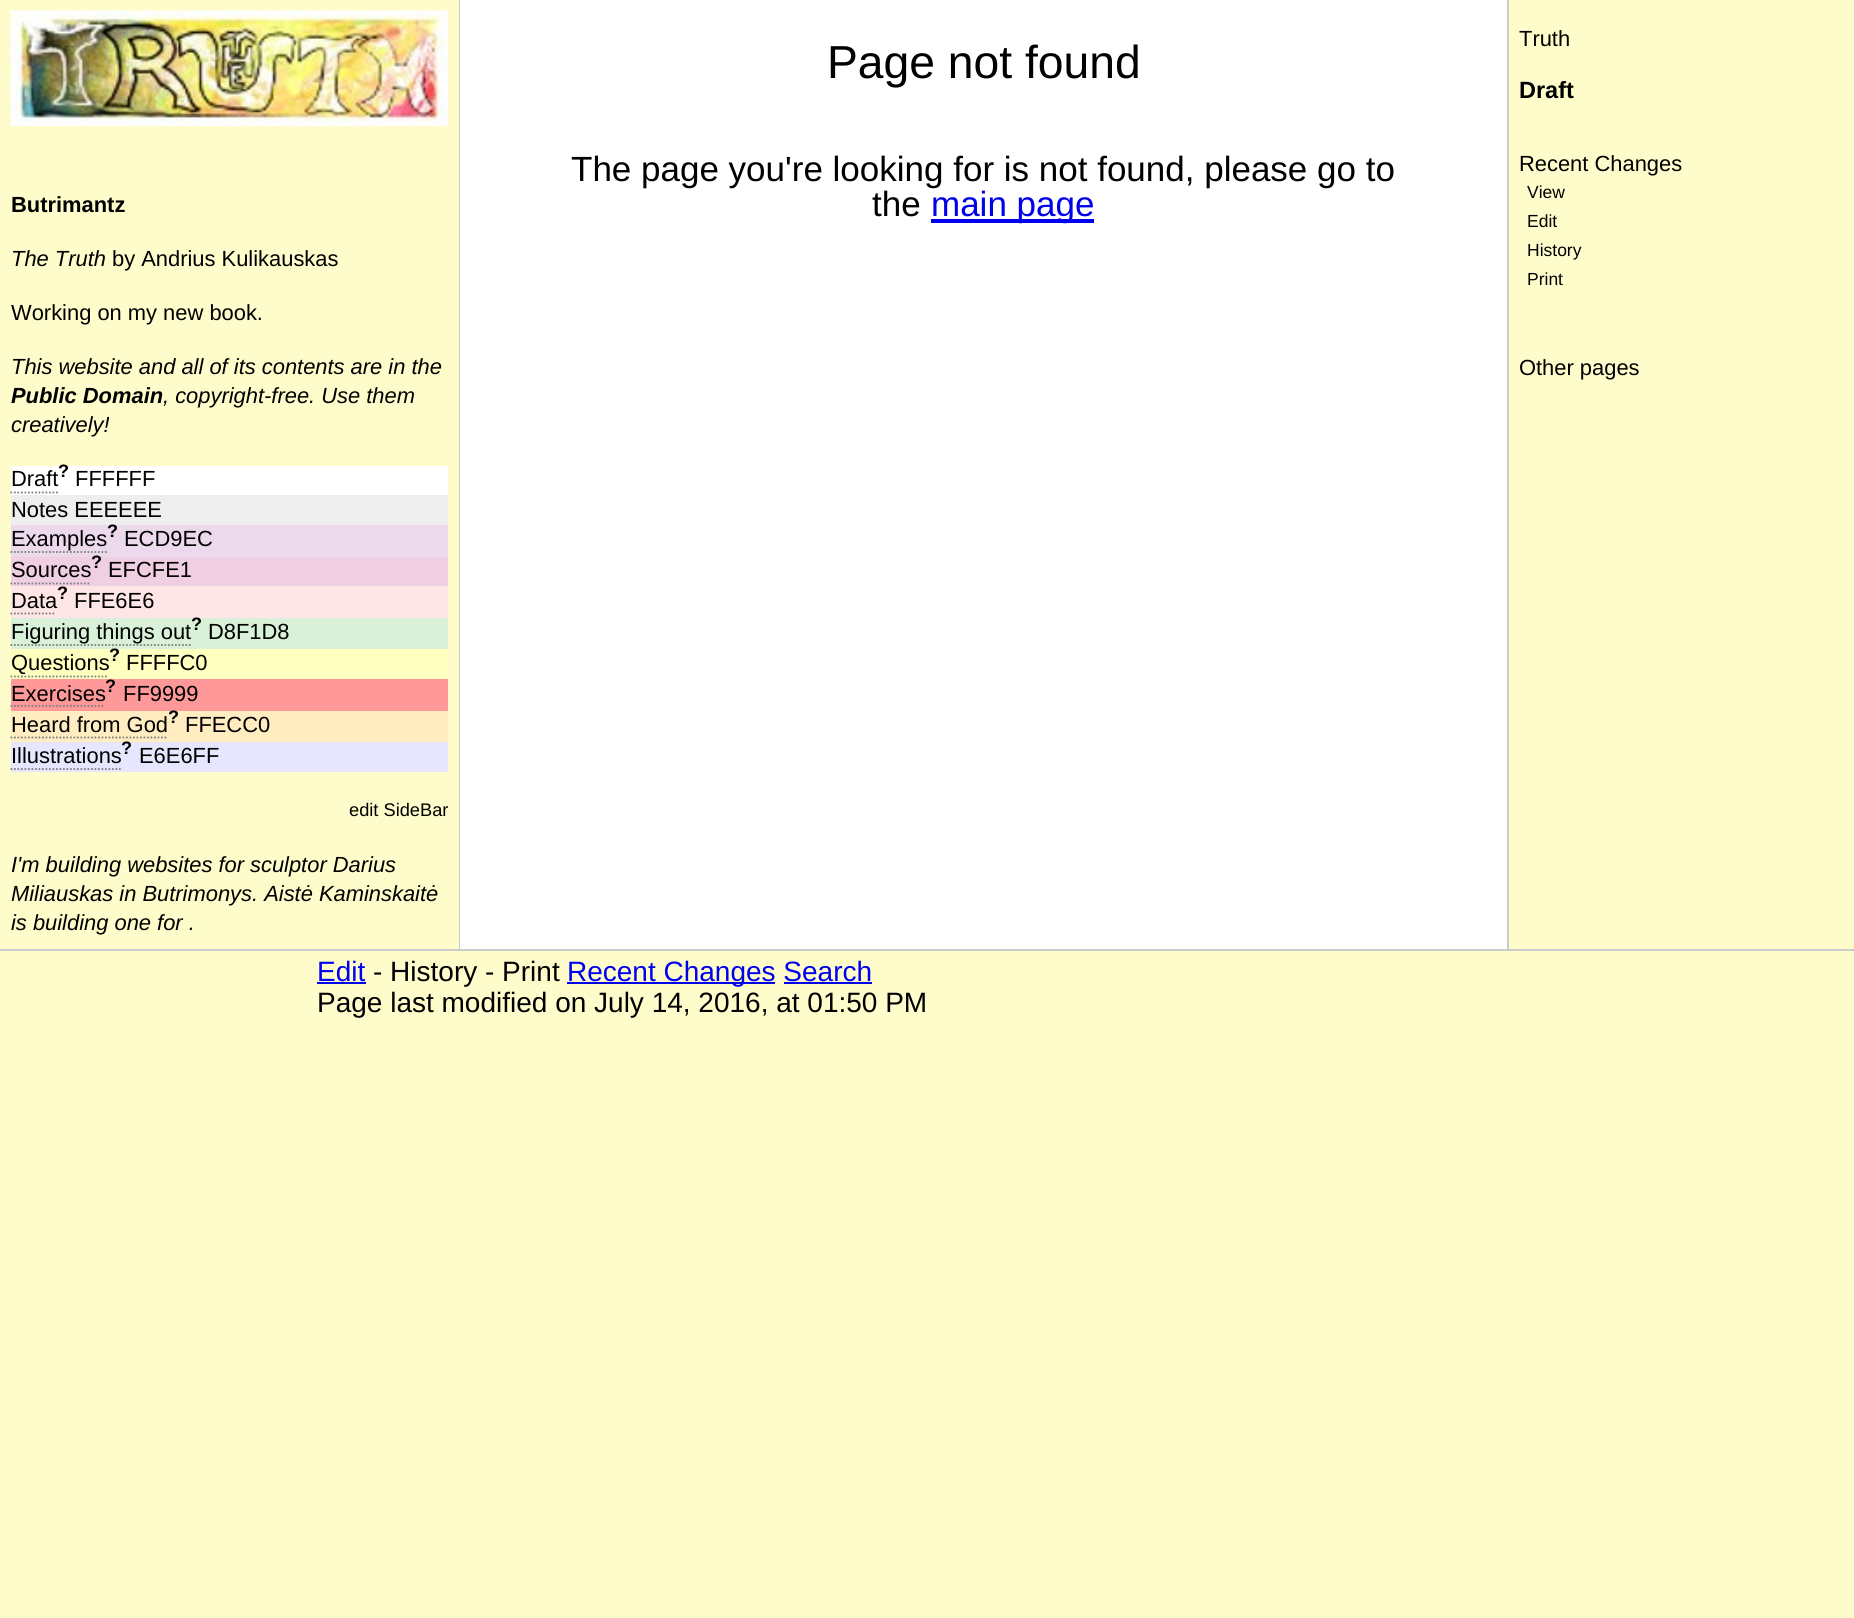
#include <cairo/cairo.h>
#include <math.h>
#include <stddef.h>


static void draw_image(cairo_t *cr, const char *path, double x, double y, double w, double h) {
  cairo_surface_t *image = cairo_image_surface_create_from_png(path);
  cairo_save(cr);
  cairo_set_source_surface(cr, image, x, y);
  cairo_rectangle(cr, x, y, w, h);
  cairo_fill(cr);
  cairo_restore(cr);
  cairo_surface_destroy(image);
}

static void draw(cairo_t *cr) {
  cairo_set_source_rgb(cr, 253 / 255.0, 252 / 255.0, 202 / 255.0);
  cairo_paint(cr);
  cairo_set_source_rgb(cr, 1, 1, 1);
  cairo_rectangle(cr, 460, 0, 1047, 949);
  cairo_fill(cr);
  cairo_set_source_rgb(cr, 0, 0, 238 / 255.0);
  cairo_rectangle(cr, 931, 219, 163, 4);
  cairo_fill(cr);
  cairo_set_source_rgb(cr, 204 / 255.0, 204 / 255.0, 204 / 255.0);
  cairo_rectangle(cr, 1507, 0, 2, 949);
  cairo_fill(cr);
  cairo_rectangle(cr, 459, 0, 1, 949);
  cairo_fill(cr);
  draw_image(cr, "images/1.png", 10, 10, 438, 116);
  cairo_set_source_rgb(cr, 1, 1, 1);
  cairo_rectangle(cr, 11, 466, 437, 29);
  cairo_fill(cr);
  cairo_new_path(cr);
  cairo_move_to(cr, 10.5, 492.5);
  cairo_line_to(cr, 58, 492.5);
  cairo_set_source_rgb(cr, 128 / 255.0, 128 / 255.0, 128 / 255.0);
  cairo_set_line_width(cr, 1.8);
  cairo_set_dash(cr, (double[]){1.75, 1.75}, 2, 0);
  cairo_stroke(cr);
  cairo_set_source_rgb(cr, 238 / 255.0, 238 / 255.0, 238 / 255.0);
  cairo_rectangle(cr, 11, 495, 437, 30);
  cairo_fill(cr);
  cairo_set_source_rgb(cr, 236 / 255.0, 217 / 255.0, 236 / 255.0);
  cairo_rectangle(cr, 11, 525, 437, 32);
  cairo_fill(cr);
  cairo_new_path(cr);
  cairo_move_to(cr, 10.5, 552);
  cairo_line_to(cr, 107, 552);
  cairo_set_source_rgb(cr, 128 / 255.0, 128 / 255.0, 128 / 255.0);
  cairo_stroke(cr);
  cairo_set_source_rgb(cr, 239 / 255.0, 207 / 255.0, 225 / 255.0);
  cairo_rectangle(cr, 11, 557, 437, 29);
  cairo_fill(cr);
  cairo_new_path(cr);
  cairo_move_to(cr, 10.5, 583.5);
  cairo_line_to(cr, 91, 583.5);
  cairo_set_source_rgb(cr, 128 / 255.0, 128 / 255.0, 128 / 255.0);
  cairo_stroke(cr);
  cairo_set_source_rgb(cr, 1, 230 / 255.0, 230 / 255.0);
  cairo_rectangle(cr, 11, 586, 437, 32);
  cairo_fill(cr);
  cairo_new_path(cr);
  cairo_move_to(cr, 10.5, 613.5);
  cairo_line_to(cr, 56, 613.5);
  cairo_set_source_rgb(cr, 128 / 255.0, 128 / 255.0, 128 / 255.0);
  cairo_stroke(cr);
  cairo_set_source_rgb(cr, 216 / 255.0, 241 / 255.0, 216 / 255.0);
  cairo_rectangle(cr, 11, 618, 437, 31);
  cairo_fill(cr);
  cairo_new_path(cr);
  cairo_move_to(cr, 10.5, 645);
  cairo_line_to(cr, 191, 645);
  cairo_set_source_rgb(cr, 128 / 255.0, 128 / 255.0, 128 / 255.0);
  cairo_stroke(cr);
  cairo_set_source_rgb(cr, 1, 1, 192 / 255.0);
  cairo_rectangle(cr, 11, 649, 437, 30);
  cairo_fill(cr);
  cairo_new_path(cr);
  cairo_move_to(cr, 10.5, 676.5);
  cairo_line_to(cr, 108.5, 676.5);
  cairo_set_source_rgb(cr, 128 / 255.0, 128 / 255.0, 128 / 255.0);
  cairo_stroke(cr);
  cairo_set_source_rgb(cr, 1, 153 / 255.0, 153 / 255.0);
  cairo_rectangle(cr, 11, 679, 437, 32);
  cairo_fill(cr);
  cairo_new_path(cr);
  cairo_move_to(cr, 10.5, 706);
  cairo_line_to(cr, 105, 706);
  cairo_set_source_rgb(cr, 128 / 255.0, 128 / 255.0, 128 / 255.0);
  cairo_stroke(cr);
  cairo_set_source_rgb(cr, 1, 236 / 255.0, 192 / 255.0);
  cairo_rectangle(cr, 11, 711, 437, 31);
  cairo_fill(cr);
  cairo_new_path(cr);
  cairo_move_to(cr, 10.5, 737.5);
  cairo_line_to(cr, 168, 737.5);
  cairo_set_source_rgb(cr, 128 / 255.0, 128 / 255.0, 128 / 255.0);
  cairo_stroke(cr);
  cairo_set_source_rgb(cr, 230 / 255.0, 230 / 255.0, 1);
  cairo_rectangle(cr, 11, 742, 437, 30);
  cairo_fill(cr);
  cairo_new_path(cr);
  cairo_move_to(cr, 10.5, 769);
  cairo_line_to(cr, 121, 769);
  cairo_set_source_rgb(cr, 128 / 255.0, 128 / 255.0, 128 / 255.0);
  cairo_stroke(cr);
  cairo_set_source_rgb(cr, 204 / 255.0, 204 / 255.0, 204 / 255.0);
  cairo_rectangle(cr, 0, 949, 1854, 2);
  cairo_fill(cr);
  cairo_set_source_rgb(cr, 0, 0, 238 / 255.0);
  cairo_rectangle(cr, 317, 982, 49, 2);
  cairo_fill(cr);
  cairo_rectangle(cr, 567, 982, 208, 2);
  cairo_fill(cr);
  cairo_rectangle(cr, 784, 982, 88, 2);
  cairo_fill(cr);
  cairo_select_font_face(cr, "Liberation Sans", CAIRO_FONT_SLANT_NORMAL, CAIRO_FONT_WEIGHT_NORMAL);
  cairo_set_font_size(cr, 46.25);
  cairo_set_source_rgb(cr, 0, 0, 0);
  cairo_move_to(cr, 827, 78);
  cairo_show_text(cr, "Page not found");
  cairo_set_font_size(cr, 35);
  cairo_move_to(cr, 571, 181);
  cairo_show_text(cr, "The page you're looking for is not found, please go to");
  cairo_move_to(cr, 872, 216);
  cairo_show_text(cr, "the");
  cairo_set_source_rgb(cr, 0, 0, 238 / 255.0);
  cairo_move_to(cr, 931, 216);
  cairo_show_text(cr, "main page");
  cairo_set_font_size(cr, 21.9);
  cairo_set_source_rgb(cr, 0, 0, 0);
  cairo_move_to(cr, 1519, 46);
  cairo_show_text(cr, "Truth");
  cairo_select_font_face(cr, "Liberation Sans", CAIRO_FONT_SLANT_NORMAL, CAIRO_FONT_WEIGHT_BOLD);
  cairo_set_font_size(cr, 23.5);
  cairo_move_to(cr, 1519, 98);
  cairo_show_text(cr, "Draft");
  cairo_select_font_face(cr, "Liberation Sans", CAIRO_FONT_SLANT_NORMAL, CAIRO_FONT_WEIGHT_NORMAL);
  cairo_set_font_size(cr, 21.9);
  cairo_move_to(cr, 1519, 171);
  cairo_show_text(cr, "Recent Changes");
  cairo_set_font_size(cr, 17.5);
  cairo_move_to(cr, 1527, 198);
  cairo_show_text(cr, "View");
  cairo_move_to(cr, 1527, 227);
  cairo_show_text(cr, "Edit");
  cairo_move_to(cr, 1527, 256);
  cairo_show_text(cr, "History");
  cairo_move_to(cr, 1527, 285);
  cairo_show_text(cr, "Print");
  cairo_set_font_size(cr, 21.9);
  cairo_move_to(cr, 1519, 375);
  cairo_show_text(cr, "Other pages");
  cairo_select_font_face(cr, "Liberation Sans", CAIRO_FONT_SLANT_NORMAL, CAIRO_FONT_WEIGHT_BOLD);
  cairo_move_to(cr, 11, 212);
  cairo_show_text(cr, "Butrimantz");
  cairo_select_font_face(cr, "Liberation Sans", CAIRO_FONT_SLANT_ITALIC, CAIRO_FONT_WEIGHT_NORMAL);
  cairo_move_to(cr, 11, 266);
  cairo_show_text(cr, "The Truth");
  cairo_select_font_face(cr, "Liberation Sans", CAIRO_FONT_SLANT_NORMAL, CAIRO_FONT_WEIGHT_NORMAL);
  cairo_move_to(cr, 112, 266);
  cairo_show_text(cr, "by Andrius Kulikauskas");
  cairo_move_to(cr, 11, 320);
  cairo_show_text(cr, "Working on my new book.");
  cairo_select_font_face(cr, "Liberation Sans", CAIRO_FONT_SLANT_ITALIC, CAIRO_FONT_WEIGHT_NORMAL);
  cairo_move_to(cr, 11, 374);
  cairo_show_text(cr, "This website and all of its contents are in the");
  cairo_select_font_face(cr, "Liberation Sans", CAIRO_FONT_SLANT_ITALIC, CAIRO_FONT_WEIGHT_BOLD);
  cairo_move_to(cr, 11, 403);
  cairo_show_text(cr, "Public Domain");
  cairo_select_font_face(cr, "Liberation Sans", CAIRO_FONT_SLANT_ITALIC, CAIRO_FONT_WEIGHT_NORMAL);
  cairo_move_to(cr, 163, 403);
  cairo_show_text(cr, ", copyright-free. Use them");
  cairo_move_to(cr, 11, 432);
  cairo_show_text(cr, "creatively!");
  cairo_select_font_face(cr, "Liberation Sans", CAIRO_FONT_SLANT_NORMAL, CAIRO_FONT_WEIGHT_NORMAL);
  cairo_move_to(cr, 11, 486);
  cairo_show_text(cr, "Draft");
  cairo_select_font_face(cr, "Liberation Sans", CAIRO_FONT_SLANT_NORMAL, CAIRO_FONT_WEIGHT_BOLD);
  cairo_set_font_size(cr, 18);
  cairo_move_to(cr, 58, 477);
  cairo_show_text(cr, "?");
  cairo_select_font_face(cr, "Liberation Sans", CAIRO_FONT_SLANT_NORMAL, CAIRO_FONT_WEIGHT_NORMAL);
  cairo_set_font_size(cr, 21.9);
  cairo_move_to(cr, 75, 486);
  cairo_show_text(cr, "FFFFFF");
  cairo_move_to(cr, 11, 517);
  cairo_show_text(cr, "Notes EEEEEE");
  cairo_move_to(cr, 11, 546);
  cairo_show_text(cr, "Examples");
  cairo_select_font_face(cr, "Liberation Sans", CAIRO_FONT_SLANT_NORMAL, CAIRO_FONT_WEIGHT_BOLD);
  cairo_set_font_size(cr, 18);
  cairo_move_to(cr, 107, 537);
  cairo_show_text(cr, "?");
  cairo_select_font_face(cr, "Liberation Sans", CAIRO_FONT_SLANT_NORMAL, CAIRO_FONT_WEIGHT_NORMAL);
  cairo_set_font_size(cr, 21.9);
  cairo_move_to(cr, 124, 546);
  cairo_show_text(cr, "ECD9EC");
  cairo_move_to(cr, 11, 577);
  cairo_show_text(cr, "Sources");
  cairo_select_font_face(cr, "Liberation Sans", CAIRO_FONT_SLANT_NORMAL, CAIRO_FONT_WEIGHT_BOLD);
  cairo_set_font_size(cr, 18);
  cairo_move_to(cr, 91, 568);
  cairo_show_text(cr, "?");
  cairo_select_font_face(cr, "Liberation Sans", CAIRO_FONT_SLANT_NORMAL, CAIRO_FONT_WEIGHT_NORMAL);
  cairo_set_font_size(cr, 21.9);
  cairo_move_to(cr, 108, 577);
  cairo_show_text(cr, "EFCFE1");
  cairo_move_to(cr, 11, 608);
  cairo_show_text(cr, "Data");
  cairo_select_font_face(cr, "Liberation Sans", CAIRO_FONT_SLANT_NORMAL, CAIRO_FONT_WEIGHT_BOLD);
  cairo_set_font_size(cr, 18);
  cairo_move_to(cr, 57, 599);
  cairo_show_text(cr, "?");
  cairo_select_font_face(cr, "Liberation Sans", CAIRO_FONT_SLANT_NORMAL, CAIRO_FONT_WEIGHT_NORMAL);
  cairo_set_font_size(cr, 21.9);
  cairo_move_to(cr, 74, 608);
  cairo_show_text(cr, "FFE6E6");
  cairo_move_to(cr, 11, 639);
  cairo_show_text(cr, "Figuring things out");
  cairo_select_font_face(cr, "Liberation Sans", CAIRO_FONT_SLANT_NORMAL, CAIRO_FONT_WEIGHT_BOLD);
  cairo_set_font_size(cr, 18);
  cairo_move_to(cr, 191, 630);
  cairo_show_text(cr, "?");
  cairo_select_font_face(cr, "Liberation Sans", CAIRO_FONT_SLANT_NORMAL, CAIRO_FONT_WEIGHT_NORMAL);
  cairo_set_font_size(cr, 21.9);
  cairo_move_to(cr, 208, 639);
  cairo_show_text(cr, "D8F1D8");
  cairo_move_to(cr, 11, 670);
  cairo_show_text(cr, "Questions");
  cairo_select_font_face(cr, "Liberation Sans", CAIRO_FONT_SLANT_NORMAL, CAIRO_FONT_WEIGHT_BOLD);
  cairo_set_font_size(cr, 18);
  cairo_move_to(cr, 109, 661);
  cairo_show_text(cr, "?");
  cairo_select_font_face(cr, "Liberation Sans", CAIRO_FONT_SLANT_NORMAL, CAIRO_FONT_WEIGHT_NORMAL);
  cairo_set_font_size(cr, 21.9);
  cairo_move_to(cr, 126, 670);
  cairo_show_text(cr, "FFFFC0");
  cairo_move_to(cr, 11, 701);
  cairo_show_text(cr, "Exercises");
  cairo_select_font_face(cr, "Liberation Sans", CAIRO_FONT_SLANT_NORMAL, CAIRO_FONT_WEIGHT_BOLD);
  cairo_set_font_size(cr, 18);
  cairo_move_to(cr, 105, 692);
  cairo_show_text(cr, "?");
  cairo_select_font_face(cr, "Liberation Sans", CAIRO_FONT_SLANT_NORMAL, CAIRO_FONT_WEIGHT_NORMAL);
  cairo_set_font_size(cr, 21.9);
  cairo_move_to(cr, 123, 701);
  cairo_show_text(cr, "FF9999");
  cairo_move_to(cr, 11, 732);
  cairo_show_text(cr, "Heard from God");
  cairo_select_font_face(cr, "Liberation Sans", CAIRO_FONT_SLANT_NORMAL, CAIRO_FONT_WEIGHT_BOLD);
  cairo_set_font_size(cr, 18);
  cairo_move_to(cr, 168, 723);
  cairo_show_text(cr, "?");
  cairo_select_font_face(cr, "Liberation Sans", CAIRO_FONT_SLANT_NORMAL, CAIRO_FONT_WEIGHT_NORMAL);
  cairo_set_font_size(cr, 21.9);
  cairo_move_to(cr, 185, 732);
  cairo_show_text(cr, "FFECC0");
  cairo_move_to(cr, 11, 763);
  cairo_show_text(cr, "Illustrations");
  cairo_select_font_face(cr, "Liberation Sans", CAIRO_FONT_SLANT_NORMAL, CAIRO_FONT_WEIGHT_BOLD);
  cairo_set_font_size(cr, 18);
  cairo_move_to(cr, 121, 754);
  cairo_show_text(cr, "?");
  cairo_select_font_face(cr, "Liberation Sans", CAIRO_FONT_SLANT_NORMAL, CAIRO_FONT_WEIGHT_NORMAL);
  cairo_set_font_size(cr, 21.9);
  cairo_move_to(cr, 139, 763);
  cairo_show_text(cr, "E6E6FF");
  cairo_set_font_size(cr, 18.25);
  cairo_move_to(cr, 349, 816);
  cairo_show_text(cr, "edit SideBar");
  cairo_select_font_face(cr, "Liberation Sans", CAIRO_FONT_SLANT_ITALIC, CAIRO_FONT_WEIGHT_NORMAL);
  cairo_set_font_size(cr, 21.9);
  cairo_move_to(cr, 11, 872);
  cairo_show_text(cr, "I'm building websites for");
  cairo_move_to(cr, 250, 872);
  cairo_show_text(cr, "sculptor Darius");
  cairo_move_to(cr, 11, 901);
  cairo_show_text(cr, "Miliauskas in Butrimonys");
  cairo_move_to(cr, 252, 901);
  cairo_show_text(cr, ". Aistė Kaminskaitė");
  cairo_move_to(cr, 11, 930);
  cairo_show_text(cr, "is building one for .");
  cairo_select_font_face(cr, "Liberation Sans", CAIRO_FONT_SLANT_NORMAL, CAIRO_FONT_WEIGHT_NORMAL);
  cairo_set_font_size(cr, 28);
  cairo_set_source_rgb(cr, 0, 0, 238 / 255.0);
  cairo_move_to(cr, 317, 981);
  cairo_show_text(cr, "Edit");
  cairo_set_source_rgb(cr, 0, 0, 0);
  cairo_move_to(cr, 373, 981);
  cairo_show_text(cr, "- History - Print");
  cairo_set_source_rgb(cr, 0, 0, 238 / 255.0);
  cairo_move_to(cr, 567, 981);
  cairo_show_text(cr, "Recent Changes Search");
  cairo_set_source_rgb(cr, 0, 0, 0);
  cairo_move_to(cr, 317, 1012);
  cairo_show_text(cr, "Page last modified on July 14, 2016, at 01:50 PM");
}

int main(void) {
  cairo_surface_t *surface = cairo_image_surface_create(CAIRO_FORMAT_RGB24, 1854, 1618);
  cairo_t *cr = cairo_create(surface);
  cairo_font_options_t *options = cairo_font_options_create();
  cairo_font_options_set_hint_metrics(options, CAIRO_HINT_METRICS_OFF);
  cairo_font_options_set_hint_style(options, CAIRO_HINT_STYLE_NONE);
  cairo_set_font_options(cr, options);
  cairo_set_miter_limit(cr, 4);
  draw(cr);
  cairo_surface_write_to_png(surface, "out.png");
  cairo_font_options_destroy(options);
  cairo_destroy(cr);
  cairo_surface_destroy(surface);
  return 0;
}
